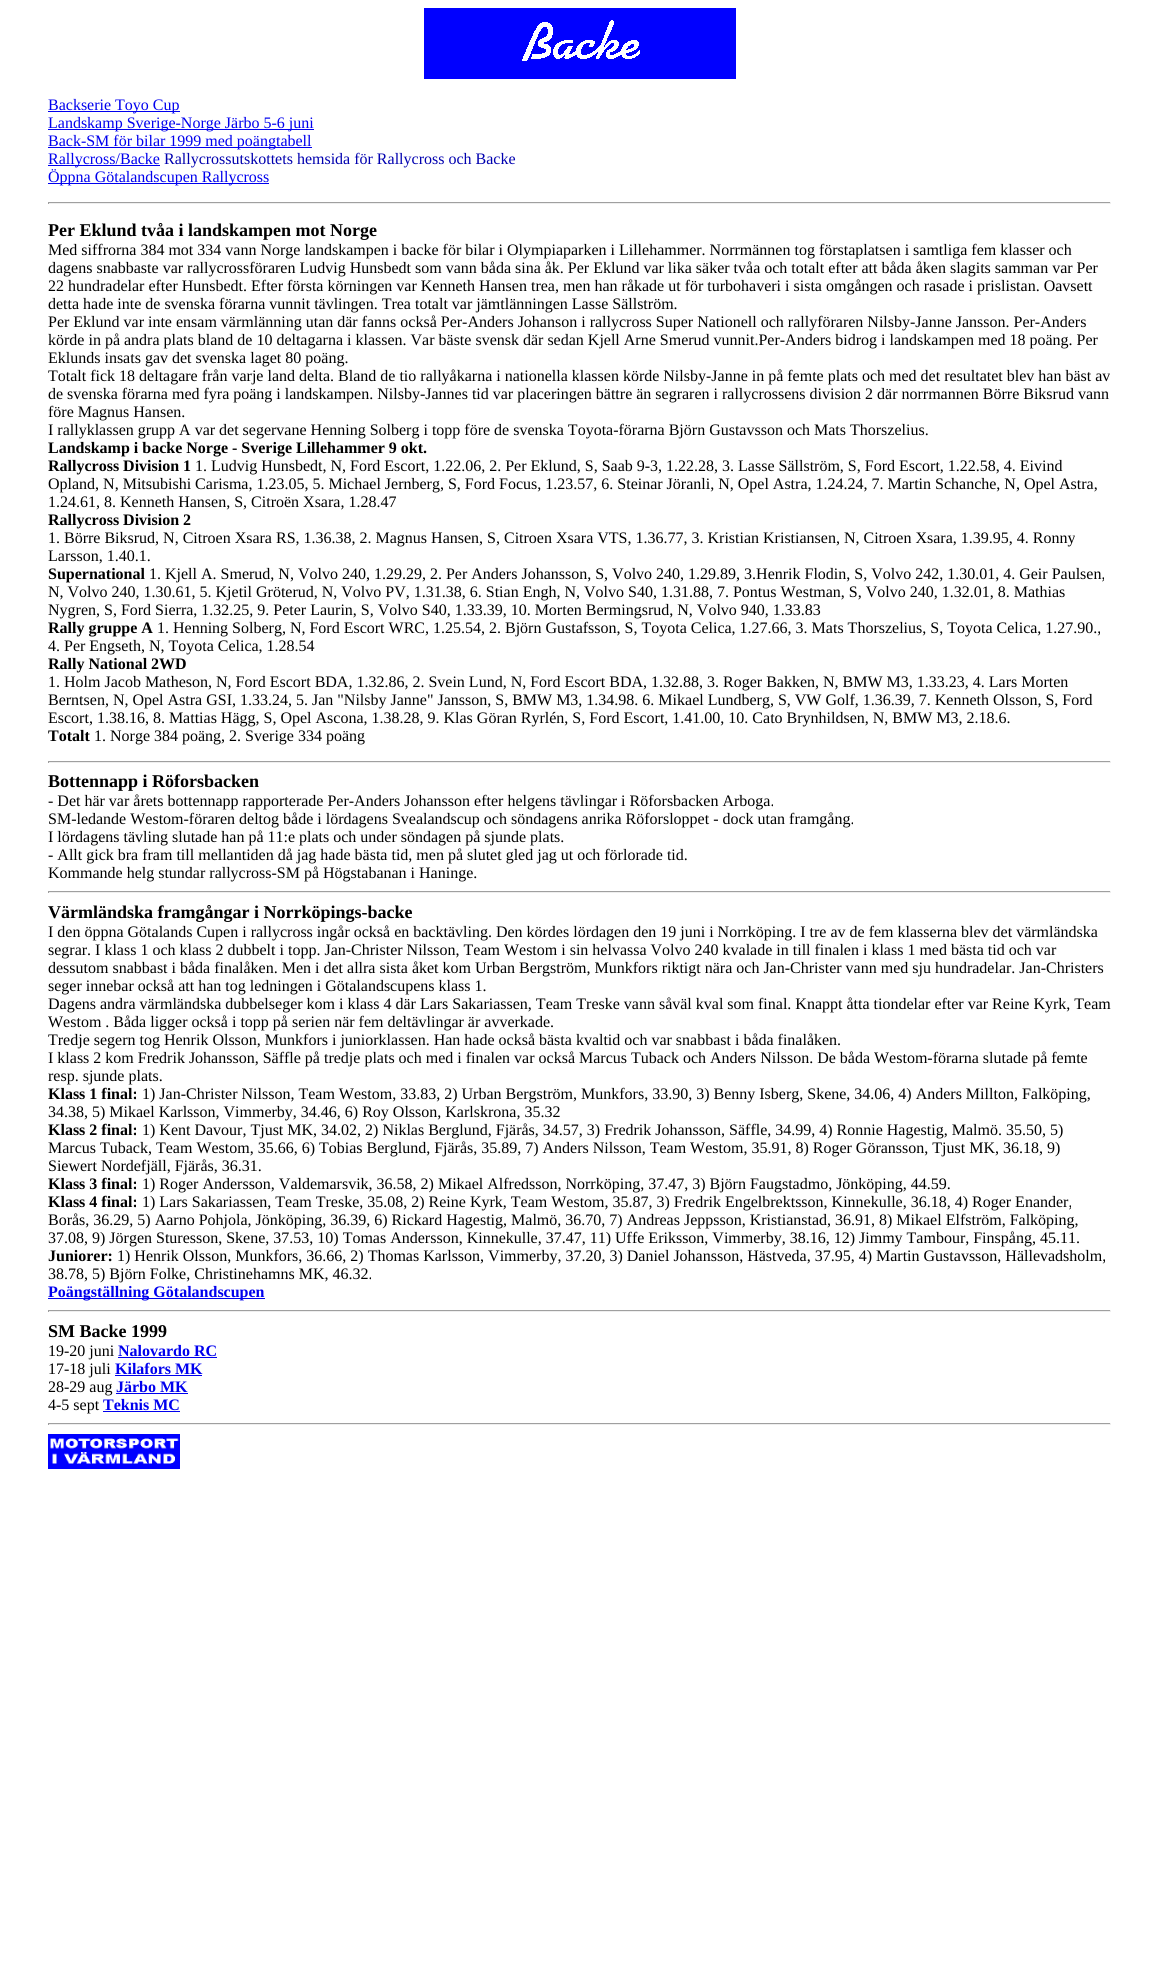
#include <cairo/cairo.h>
#include <math.h>
#include <stddef.h>


static void draw_image(cairo_t *cr, const char *path, double x, double y, double w, double h) {
  cairo_surface_t *image = cairo_image_surface_create_from_png(path);
  cairo_save(cr);
  cairo_set_source_surface(cr, image, x, y);
  cairo_rectangle(cr, x, y, w, h);
  cairo_fill(cr);
  cairo_restore(cr);
  cairo_surface_destroy(image);
}

static void draw(cairo_t *cr) {
  cairo_set_source_rgb(cr, 1, 1, 1);
  cairo_paint(cr);
  draw_image(cr, "images/1.png", 424, 8, 312, 71);
  cairo_set_source_rgb(cr, 0, 0, 238 / 255.0);
  cairo_rectangle(cr, 48, 111, 132, 1);
  cairo_fill(cr);
  cairo_rectangle(cr, 48, 129, 266, 1);
  cairo_fill(cr);
  cairo_rectangle(cr, 48, 147, 264, 1);
  cairo_fill(cr);
  cairo_rectangle(cr, 48, 165, 112, 1);
  cairo_fill(cr);
  cairo_rectangle(cr, 48, 183, 221, 1);
  cairo_fill(cr);
  cairo_set_source_rgb(cr, 159 / 255.0, 159 / 255.0, 159 / 255.0);
  cairo_rectangle(cr, 48, 202, 1063, 1);
  cairo_fill(cr);
  cairo_set_source_rgb(cr, 238 / 255.0, 238 / 255.0, 238 / 255.0);
  cairo_rectangle(cr, 1110, 202, 1, 2);
  cairo_fill(cr);
  cairo_rectangle(cr, 48, 203, 1063, 1);
  cairo_fill(cr);
  cairo_set_source_rgb(cr, 159 / 255.0, 159 / 255.0, 159 / 255.0);
  cairo_rectangle(cr, 48, 202, 1, 2);
  cairo_fill(cr);
  cairo_rectangle(cr, 48, 761, 1063, 1);
  cairo_fill(cr);
  cairo_set_source_rgb(cr, 238 / 255.0, 238 / 255.0, 238 / 255.0);
  cairo_rectangle(cr, 1110, 761, 1, 2);
  cairo_fill(cr);
  cairo_rectangle(cr, 48, 762, 1063, 1);
  cairo_fill(cr);
  cairo_set_source_rgb(cr, 159 / 255.0, 159 / 255.0, 159 / 255.0);
  cairo_rectangle(cr, 48, 761, 1, 2);
  cairo_fill(cr);
  cairo_rectangle(cr, 48, 891, 1063, 1);
  cairo_fill(cr);
  cairo_set_source_rgb(cr, 238 / 255.0, 238 / 255.0, 238 / 255.0);
  cairo_rectangle(cr, 1110, 891, 1, 2);
  cairo_fill(cr);
  cairo_rectangle(cr, 48, 892, 1063, 1);
  cairo_fill(cr);
  cairo_set_source_rgb(cr, 159 / 255.0, 159 / 255.0, 159 / 255.0);
  cairo_rectangle(cr, 48, 891, 1, 2);
  cairo_fill(cr);
  cairo_set_source_rgb(cr, 0, 0, 238 / 255.0);
  cairo_rectangle(cr, 48, 1298, 217, 1);
  cairo_fill(cr);
  cairo_set_source_rgb(cr, 159 / 255.0, 159 / 255.0, 159 / 255.0);
  cairo_rectangle(cr, 48, 1310, 1063, 1);
  cairo_fill(cr);
  cairo_set_source_rgb(cr, 238 / 255.0, 238 / 255.0, 238 / 255.0);
  cairo_rectangle(cr, 1110, 1310, 1, 2);
  cairo_fill(cr);
  cairo_rectangle(cr, 48, 1311, 1063, 1);
  cairo_fill(cr);
  cairo_set_source_rgb(cr, 159 / 255.0, 159 / 255.0, 159 / 255.0);
  cairo_rectangle(cr, 48, 1310, 1, 2);
  cairo_fill(cr);
  cairo_set_source_rgb(cr, 0, 0, 238 / 255.0);
  cairo_rectangle(cr, 118, 1357, 99, 1);
  cairo_fill(cr);
  cairo_rectangle(cr, 115, 1375, 87, 1);
  cairo_fill(cr);
  cairo_rectangle(cr, 116, 1393, 72, 1);
  cairo_fill(cr);
  cairo_rectangle(cr, 103, 1411, 77, 1);
  cairo_fill(cr);
  cairo_set_source_rgb(cr, 159 / 255.0, 159 / 255.0, 159 / 255.0);
  cairo_rectangle(cr, 48, 1423, 1063, 1);
  cairo_fill(cr);
  cairo_set_source_rgb(cr, 238 / 255.0, 238 / 255.0, 238 / 255.0);
  cairo_rectangle(cr, 1110, 1423, 1, 2);
  cairo_fill(cr);
  cairo_rectangle(cr, 48, 1424, 1063, 1);
  cairo_fill(cr);
  cairo_set_source_rgb(cr, 159 / 255.0, 159 / 255.0, 159 / 255.0);
  cairo_rectangle(cr, 48, 1423, 1, 2);
  cairo_fill(cr);
  draw_image(cr, "images/2.png", 48, 1434, 132, 35);
  cairo_select_font_face(cr, "Liberation Serif", CAIRO_FONT_SLANT_NORMAL, CAIRO_FONT_WEIGHT_NORMAL);
  cairo_set_font_size(cr, 16);
  cairo_set_source_rgb(cr, 0, 0, 238 / 255.0);
  cairo_move_to(cr, 48, 110);
  cairo_show_text(cr, "Backserie Toyo Cup");
  cairo_move_to(cr, 48, 128);
  cairo_show_text(cr, "Landskamp Sverige-Norge Järbo 5-6 juni");
  cairo_move_to(cr, 48, 146);
  cairo_show_text(cr, "Back-SM för bilar 1999 med poängtabell");
  cairo_move_to(cr, 48, 164);
  cairo_show_text(cr, "Rallycross/Backe");
  cairo_set_source_rgb(cr, 0, 0, 175 / 255.0);
  cairo_move_to(cr, 164, 164);
  cairo_show_text(cr, "Rallycrossutskottets hemsida för Rallycross och Backe");
  cairo_set_source_rgb(cr, 0, 0, 238 / 255.0);
  cairo_move_to(cr, 48, 182);
  cairo_show_text(cr, "Öppna Götalandscupen Rallycross");
  cairo_select_font_face(cr, "Liberation Serif", CAIRO_FONT_SLANT_NORMAL, CAIRO_FONT_WEIGHT_BOLD);
  cairo_set_font_size(cr, 18);
  cairo_set_source_rgb(cr, 0, 0, 0);
  cairo_move_to(cr, 48, 236);
  cairo_show_text(cr, "Per Eklund tvåa i landskampen mot Norge");
  cairo_select_font_face(cr, "Liberation Serif", CAIRO_FONT_SLANT_NORMAL, CAIRO_FONT_WEIGHT_NORMAL);
  cairo_set_font_size(cr, 16);
  cairo_move_to(cr, 48, 255);
  cairo_show_text(cr, "Med siffrorna 384 mot 334 vann Norge landskampen i backe för bilar i Olympiaparken i Lillehammer. Norrmännen tog förstaplatsen i samtliga fem klasser och");
  cairo_move_to(cr, 48, 273);
  cairo_show_text(cr, "dagens snabbaste var rallycrossföraren Ludvig Hunsbedt som vann båda sina åk. Per Eklund var lika säker tvåa och totalt efter att båda åken slagits samman var Per");
  cairo_move_to(cr, 48, 291);
  cairo_show_text(cr, "22 hundradelar efter Hunsbedt. Efter första körningen var Kenneth Hansen trea, men han råkade ut för turbohaveri i sista omgången och rasade i prislistan. Oavsett");
  cairo_move_to(cr, 48, 309);
  cairo_show_text(cr, "detta hade inte de svenska förarna vunnit tävlingen. Trea totalt var jämtlänningen Lasse Sällström.");
  cairo_move_to(cr, 48, 327);
  cairo_show_text(cr, "Per Eklund var inte ensam värmlänning utan där fanns också Per-Anders Johanson i rallycross Super Nationell och rallyföraren Nilsby-Janne Jansson. Per-Anders");
  cairo_move_to(cr, 48, 345);
  cairo_show_text(cr, "körde in på andra plats bland de 10 deltagarna i klassen. Var bäste svensk där sedan Kjell Arne Smerud vunnit.Per-Anders bidrog i landskampen med 18 poäng. Per");
  cairo_move_to(cr, 48, 363);
  cairo_show_text(cr, "Eklunds insats gav det svenska laget 80 poäng.");
  cairo_move_to(cr, 48, 381);
  cairo_show_text(cr, "Totalt fick 18 deltagare från varje land delta. Bland de tio rallyåkarna i nationella klassen körde Nilsby-Janne in på femte plats och med det resultatet blev han bäst av");
  cairo_move_to(cr, 48, 399);
  cairo_show_text(cr, "de svenska förarna med fyra poäng i landskampen. Nilsby-Jannes tid var placeringen bättre än segraren i rallycrossens division 2 där norrmannen Börre Biksrud vann");
  cairo_move_to(cr, 48, 417);
  cairo_show_text(cr, "före Magnus Hansen.");
  cairo_move_to(cr, 48, 435);
  cairo_show_text(cr, "I rallyklassen grupp A var det segervane Henning Solberg i topp före de svenska Toyota-förarna Björn Gustavsson och Mats Thorszelius.");
  cairo_select_font_face(cr, "Liberation Serif", CAIRO_FONT_SLANT_NORMAL, CAIRO_FONT_WEIGHT_BOLD);
  cairo_move_to(cr, 48, 453);
  cairo_show_text(cr, "Landskamp i backe Norge - Sverige Lillehammer 9 okt.");
  cairo_move_to(cr, 48, 471);
  cairo_show_text(cr, "Rallycross Division 1");
  cairo_select_font_face(cr, "Liberation Serif", CAIRO_FONT_SLANT_NORMAL, CAIRO_FONT_WEIGHT_NORMAL);
  cairo_move_to(cr, 195, 471);
  cairo_show_text(cr, "1. Ludvig Hunsbedt, N, Ford Escort, 1.22.06, 2. Per Eklund, S, Saab 9-3, 1.22.28, 3. Lasse Sällström, S, Ford Escort, 1.22.58, 4. Eivind");
  cairo_move_to(cr, 48, 489);
  cairo_show_text(cr, "Opland, N, Mitsubishi Carisma, 1.23.05, 5. Michael Jernberg, S, Ford Focus, 1.23.57, 6. Steinar Jöranli, N, Opel Astra, 1.24.24, 7. Martin Schanche, N, Opel Astra,");
  cairo_move_to(cr, 48, 507);
  cairo_show_text(cr, "1.24.61, 8. Kenneth Hansen, S, Citroën Xsara, 1.28.47");
  cairo_select_font_face(cr, "Liberation Serif", CAIRO_FONT_SLANT_NORMAL, CAIRO_FONT_WEIGHT_BOLD);
  cairo_move_to(cr, 48, 525);
  cairo_show_text(cr, "Rallycross Division 2");
  cairo_select_font_face(cr, "Liberation Serif", CAIRO_FONT_SLANT_NORMAL, CAIRO_FONT_WEIGHT_NORMAL);
  cairo_move_to(cr, 48, 543);
  cairo_show_text(cr, "1. Börre Biksrud, N, Citroen Xsara RS, 1.36.38, 2. Magnus Hansen, S, Citroen Xsara VTS, 1.36.77, 3. Kristian Kristiansen, N, Citroen Xsara, 1.39.95, 4. Ronny");
  cairo_move_to(cr, 48, 561);
  cairo_show_text(cr, "Larsson, 1.40.1.");
  cairo_select_font_face(cr, "Liberation Serif", CAIRO_FONT_SLANT_NORMAL, CAIRO_FONT_WEIGHT_BOLD);
  cairo_move_to(cr, 48, 579);
  cairo_show_text(cr, "Supernational");
  cairo_select_font_face(cr, "Liberation Serif", CAIRO_FONT_SLANT_NORMAL, CAIRO_FONT_WEIGHT_NORMAL);
  cairo_move_to(cr, 149, 579);
  cairo_show_text(cr, "1. Kjell A. Smerud, N, Volvo 240, 1.29.29, 2. Per Anders Johansson, S, Volvo 240, 1.29.89, 3.Henrik Flodin, S, Volvo 242, 1.30.01, 4. Geir Paulsen,");
  cairo_move_to(cr, 48, 597);
  cairo_show_text(cr, "N, Volvo 240, 1.30.61, 5. Kjetil Gröterud, N, Volvo PV, 1.31.38, 6. Stian Engh, N, Volvo S40, 1.31.88, 7. Pontus Westman, S, Volvo 240, 1.32.01, 8. Mathias");
  cairo_move_to(cr, 48, 615);
  cairo_show_text(cr, "Nygren, S, Ford Sierra, 1.32.25, 9. Peter Laurin, S, Volvo S40, 1.33.39, 10. Morten Bermingsrud, N, Volvo 940, 1.33.83");
  cairo_select_font_face(cr, "Liberation Serif", CAIRO_FONT_SLANT_NORMAL, CAIRO_FONT_WEIGHT_BOLD);
  cairo_move_to(cr, 48, 633);
  cairo_show_text(cr, "Rally gruppe A");
  cairo_select_font_face(cr, "Liberation Serif", CAIRO_FONT_SLANT_NORMAL, CAIRO_FONT_WEIGHT_NORMAL);
  cairo_move_to(cr, 157, 633);
  cairo_show_text(cr, "1. Henning Solberg, N, Ford Escort WRC, 1.25.54, 2. Björn Gustafsson, S, Toyota Celica, 1.27.66, 3. Mats Thorszelius, S, Toyota Celica, 1.27.90.,");
  cairo_move_to(cr, 48, 651);
  cairo_show_text(cr, "4. Per Engseth, N, Toyota Celica, 1.28.54");
  cairo_select_font_face(cr, "Liberation Serif", CAIRO_FONT_SLANT_NORMAL, CAIRO_FONT_WEIGHT_BOLD);
  cairo_move_to(cr, 48, 669);
  cairo_show_text(cr, "Rally National 2WD");
  cairo_select_font_face(cr, "Liberation Serif", CAIRO_FONT_SLANT_NORMAL, CAIRO_FONT_WEIGHT_NORMAL);
  cairo_move_to(cr, 48, 687);
  cairo_show_text(cr, "1. Holm Jacob Matheson, N, Ford Escort BDA, 1.32.86, 2. Svein Lund, N, Ford Escort BDA, 1.32.88, 3. Roger Bakken, N, BMW M3, 1.33.23, 4. Lars Morten");
  cairo_move_to(cr, 48, 705);
  cairo_show_text(cr, "Berntsen, N, Opel Astra GSI, 1.33.24, 5. Jan \"Nilsby Janne\" Jansson, S, BMW M3, 1.34.98. 6. Mikael Lundberg, S, VW Golf, 1.36.39, 7. Kenneth Olsson, S, Ford");
  cairo_move_to(cr, 48, 723);
  cairo_show_text(cr, "Escort, 1.38.16, 8. Mattias Hägg, S, Opel Ascona, 1.38.28, 9. Klas Göran Ryrlén, S, Ford Escort, 1.41.00, 10. Cato Brynhildsen, N, BMW M3, 2.18.6.");
  cairo_select_font_face(cr, "Liberation Serif", CAIRO_FONT_SLANT_NORMAL, CAIRO_FONT_WEIGHT_BOLD);
  cairo_move_to(cr, 48, 741);
  cairo_show_text(cr, "Totalt");
  cairo_select_font_face(cr, "Liberation Serif", CAIRO_FONT_SLANT_NORMAL, CAIRO_FONT_WEIGHT_NORMAL);
  cairo_move_to(cr, 94, 741);
  cairo_show_text(cr, "1. Norge 384 poäng, 2. Sverige 334 poäng");
  cairo_select_font_face(cr, "Liberation Serif", CAIRO_FONT_SLANT_NORMAL, CAIRO_FONT_WEIGHT_BOLD);
  cairo_set_font_size(cr, 18);
  cairo_move_to(cr, 48, 787);
  cairo_show_text(cr, "Bottennapp i Röforsbacken");
  cairo_select_font_face(cr, "Liberation Serif", CAIRO_FONT_SLANT_NORMAL, CAIRO_FONT_WEIGHT_NORMAL);
  cairo_set_font_size(cr, 16);
  cairo_move_to(cr, 48, 806);
  cairo_show_text(cr, "- Det här var årets bottennapp rapporterade Per-Anders Johansson efter helgens tävlingar i Röforsbacken Arboga.");
  cairo_move_to(cr, 48, 824);
  cairo_show_text(cr, "SM-ledande Westom-föraren deltog både i lördagens Svealandscup och söndagens anrika Röforsloppet - dock utan framgång.");
  cairo_move_to(cr, 48, 842);
  cairo_show_text(cr, "I lördagens tävling slutade han på 11:e plats och under söndagen på sjunde plats.");
  cairo_move_to(cr, 48, 860);
  cairo_show_text(cr, "- Allt gick bra fram till mellantiden då jag hade bästa tid, men på slutet gled jag ut och förlorade tid.");
  cairo_move_to(cr, 48, 878);
  cairo_show_text(cr, "Kommande helg stundar rallycross-SM på Högstabanan i Haninge.");
  cairo_select_font_face(cr, "Liberation Serif", CAIRO_FONT_SLANT_NORMAL, CAIRO_FONT_WEIGHT_BOLD);
  cairo_set_font_size(cr, 18);
  cairo_move_to(cr, 48, 918);
  cairo_show_text(cr, "Värmländska framgångar i Norrköpings-backe");
  cairo_select_font_face(cr, "Liberation Serif", CAIRO_FONT_SLANT_NORMAL, CAIRO_FONT_WEIGHT_NORMAL);
  cairo_set_font_size(cr, 16);
  cairo_move_to(cr, 48, 937);
  cairo_show_text(cr, "I den öppna Götalands Cupen i rallycross ingår också en backtävling. Den kördes lördagen den 19 juni i Norrköping. I tre av de fem klasserna blev det värmländska");
  cairo_move_to(cr, 48, 955);
  cairo_show_text(cr, "segrar. I klass 1 och klass 2 dubbelt i topp. Jan-Christer Nilsson, Team Westom i sin helvassa Volvo 240 kvalade in till finalen i klass 1 med bästa tid och var");
  cairo_move_to(cr, 48, 973);
  cairo_show_text(cr, "dessutom snabbast i båda finalåken. Men i det allra sista åket kom Urban Bergström, Munkfors riktigt nära och Jan-Christer vann med sju hundradelar. Jan-Christers");
  cairo_move_to(cr, 48, 991);
  cairo_show_text(cr, "seger innebar också att han tog ledningen i Götalandscupens klass 1.");
  cairo_move_to(cr, 48, 1009);
  cairo_show_text(cr, "Dagens andra värmländska dubbelseger kom i klass 4 där Lars Sakariassen, Team Treske vann såväl kval som final. Knappt åtta tiondelar efter var Reine Kyrk, Team");
  cairo_move_to(cr, 48, 1027);
  cairo_show_text(cr, "Westom . Båda ligger också i topp på serien när fem deltävlingar är avverkade.");
  cairo_move_to(cr, 48, 1045);
  cairo_show_text(cr, "Tredje segern tog Henrik Olsson, Munkfors i juniorklassen. Han hade också bästa kvaltid och var snabbast i båda finalåken.");
  cairo_move_to(cr, 48, 1063);
  cairo_show_text(cr, "I klass 2 kom Fredrik Johansson, Säffle på tredje plats och med i finalen var också Marcus Tuback och Anders Nilsson. De båda Westom-förarna slutade på femte");
  cairo_move_to(cr, 48, 1081);
  cairo_show_text(cr, "resp. sjunde plats.");
  cairo_select_font_face(cr, "Liberation Serif", CAIRO_FONT_SLANT_NORMAL, CAIRO_FONT_WEIGHT_BOLD);
  cairo_move_to(cr, 48, 1099);
  cairo_show_text(cr, "Klass 1 final:");
  cairo_select_font_face(cr, "Liberation Serif", CAIRO_FONT_SLANT_NORMAL, CAIRO_FONT_WEIGHT_NORMAL);
  cairo_move_to(cr, 142, 1099);
  cairo_show_text(cr, "1) Jan-Christer Nilsson, Team Westom, 33.83, 2) Urban Bergström, Munkfors, 33.90, 3) Benny Isberg, Skene, 34.06, 4) Anders Millton, Falköping,");
  cairo_move_to(cr, 48, 1117);
  cairo_show_text(cr, "34.38, 5) Mikael Karlsson, Vimmerby, 34.46, 6) Roy Olsson, Karlskrona, 35.32");
  cairo_select_font_face(cr, "Liberation Serif", CAIRO_FONT_SLANT_NORMAL, CAIRO_FONT_WEIGHT_BOLD);
  cairo_move_to(cr, 48, 1135);
  cairo_show_text(cr, "Klass 2 final:");
  cairo_select_font_face(cr, "Liberation Serif", CAIRO_FONT_SLANT_NORMAL, CAIRO_FONT_WEIGHT_NORMAL);
  cairo_move_to(cr, 142, 1135);
  cairo_show_text(cr, "1) Kent Davour, Tjust MK, 34.02, 2) Niklas Berglund, Fjärås, 34.57, 3) Fredrik Johansson, Säffle, 34.99, 4) Ronnie Hagestig, Malmö. 35.50, 5)");
  cairo_move_to(cr, 48, 1153);
  cairo_show_text(cr, "Marcus Tuback, Team Westom, 35.66, 6) Tobias Berglund, Fjärås, 35.89, 7) Anders Nilsson, Team Westom, 35.91, 8) Roger Göransson, Tjust MK, 36.18, 9)");
  cairo_move_to(cr, 48, 1171);
  cairo_show_text(cr, "Siewert Nordefjäll, Fjärås, 36.31.");
  cairo_select_font_face(cr, "Liberation Serif", CAIRO_FONT_SLANT_NORMAL, CAIRO_FONT_WEIGHT_BOLD);
  cairo_move_to(cr, 48, 1189);
  cairo_show_text(cr, "Klass 3 final:");
  cairo_select_font_face(cr, "Liberation Serif", CAIRO_FONT_SLANT_NORMAL, CAIRO_FONT_WEIGHT_NORMAL);
  cairo_move_to(cr, 142, 1189);
  cairo_show_text(cr, "1) Roger Andersson, Valdemarsvik, 36.58, 2) Mikael Alfredsson, Norrköping, 37.47, 3) Björn Faugstadmo, Jönköping, 44.59.");
  cairo_select_font_face(cr, "Liberation Serif", CAIRO_FONT_SLANT_NORMAL, CAIRO_FONT_WEIGHT_BOLD);
  cairo_move_to(cr, 48, 1207);
  cairo_show_text(cr, "Klass 4 final:");
  cairo_select_font_face(cr, "Liberation Serif", CAIRO_FONT_SLANT_NORMAL, CAIRO_FONT_WEIGHT_NORMAL);
  cairo_move_to(cr, 142, 1207);
  cairo_show_text(cr, "1) Lars Sakariassen, Team Treske, 35.08, 2) Reine Kyrk, Team Westom, 35.87, 3) Fredrik Engelbrektsson, Kinnekulle, 36.18, 4) Roger Enander,");
  cairo_move_to(cr, 48, 1225);
  cairo_show_text(cr, "Borås, 36.29, 5) Aarno Pohjola, Jönköping, 36.39, 6) Rickard Hagestig, Malmö, 36.70, 7) Andreas Jeppsson, Kristianstad, 36.91, 8) Mikael Elfström, Falköping,");
  cairo_move_to(cr, 48, 1243);
  cairo_show_text(cr, "37.08, 9) Jörgen Sturesson, Skene, 37.53, 10) Tomas Andersson, Kinnekulle, 37.47, 11) Uffe Eriksson, Vimmerby, 38.16, 12) Jimmy Tambour, Finspång, 45.11.");
  cairo_select_font_face(cr, "Liberation Serif", CAIRO_FONT_SLANT_NORMAL, CAIRO_FONT_WEIGHT_BOLD);
  cairo_move_to(cr, 48, 1261);
  cairo_show_text(cr, "Juniorer:");
  cairo_select_font_face(cr, "Liberation Serif", CAIRO_FONT_SLANT_NORMAL, CAIRO_FONT_WEIGHT_NORMAL);
  cairo_move_to(cr, 117, 1261);
  cairo_show_text(cr, "1) Henrik Olsson, Munkfors, 36.66, 2) Thomas Karlsson, Vimmerby, 37.20, 3) Daniel Johansson, Hästveda, 37.95, 4) Martin Gustavsson, Hällevadsholm,");
  cairo_move_to(cr, 48, 1279);
  cairo_show_text(cr, "38.78, 5) Björn Folke, Christinehamns MK, 46.32.");
  cairo_select_font_face(cr, "Liberation Serif", CAIRO_FONT_SLANT_NORMAL, CAIRO_FONT_WEIGHT_BOLD);
  cairo_set_source_rgb(cr, 0, 0, 238 / 255.0);
  cairo_move_to(cr, 48, 1297);
  cairo_show_text(cr, "Poängställning Götalandscupen");
  cairo_set_font_size(cr, 18);
  cairo_set_source_rgb(cr, 0, 0, 0);
  cairo_move_to(cr, 48, 1337);
  cairo_show_text(cr, "SM Backe 1999");
  cairo_select_font_face(cr, "Liberation Serif", CAIRO_FONT_SLANT_NORMAL, CAIRO_FONT_WEIGHT_NORMAL);
  cairo_set_font_size(cr, 16);
  cairo_move_to(cr, 48, 1356);
  cairo_show_text(cr, "19-20 juni");
  cairo_select_font_face(cr, "Liberation Serif", CAIRO_FONT_SLANT_NORMAL, CAIRO_FONT_WEIGHT_BOLD);
  cairo_set_source_rgb(cr, 0, 0, 238 / 255.0);
  cairo_move_to(cr, 118, 1356);
  cairo_show_text(cr, "Nalovardo RC");
  cairo_select_font_face(cr, "Liberation Serif", CAIRO_FONT_SLANT_NORMAL, CAIRO_FONT_WEIGHT_NORMAL);
  cairo_set_source_rgb(cr, 0, 0, 0);
  cairo_move_to(cr, 48, 1374);
  cairo_show_text(cr, "17-18 juli");
  cairo_select_font_face(cr, "Liberation Serif", CAIRO_FONT_SLANT_NORMAL, CAIRO_FONT_WEIGHT_BOLD);
  cairo_set_source_rgb(cr, 0, 0, 238 / 255.0);
  cairo_move_to(cr, 115, 1374);
  cairo_show_text(cr, "Kilafors MK");
  cairo_select_font_face(cr, "Liberation Serif", CAIRO_FONT_SLANT_NORMAL, CAIRO_FONT_WEIGHT_NORMAL);
  cairo_set_source_rgb(cr, 0, 0, 0);
  cairo_move_to(cr, 48, 1392);
  cairo_show_text(cr, "28-29 aug");
  cairo_select_font_face(cr, "Liberation Serif", CAIRO_FONT_SLANT_NORMAL, CAIRO_FONT_WEIGHT_BOLD);
  cairo_set_source_rgb(cr, 0, 0, 238 / 255.0);
  cairo_move_to(cr, 116, 1392);
  cairo_show_text(cr, "Järbo MK");
  cairo_select_font_face(cr, "Liberation Serif", CAIRO_FONT_SLANT_NORMAL, CAIRO_FONT_WEIGHT_NORMAL);
  cairo_set_source_rgb(cr, 0, 0, 0);
  cairo_move_to(cr, 48, 1410);
  cairo_show_text(cr, "4-5 sept");
  cairo_select_font_face(cr, "Liberation Serif", CAIRO_FONT_SLANT_NORMAL, CAIRO_FONT_WEIGHT_BOLD);
  cairo_set_source_rgb(cr, 0, 0, 238 / 255.0);
  cairo_move_to(cr, 103, 1410);
  cairo_show_text(cr, "Teknis MC");
}

int main(void) {
  cairo_surface_t *surface = cairo_image_surface_create(CAIRO_FORMAT_RGB24, 1159, 1982);
  cairo_t *cr = cairo_create(surface);
  cairo_font_options_t *options = cairo_font_options_create();
  cairo_font_options_set_hint_metrics(options, CAIRO_HINT_METRICS_OFF);
  cairo_font_options_set_hint_style(options, CAIRO_HINT_STYLE_NONE);
  cairo_set_font_options(cr, options);
  cairo_set_miter_limit(cr, 4);
  draw(cr);
  cairo_surface_write_to_png(surface, "out.png");
  cairo_font_options_destroy(options);
  cairo_destroy(cr);
  cairo_surface_destroy(surface);
  return 0;
}
